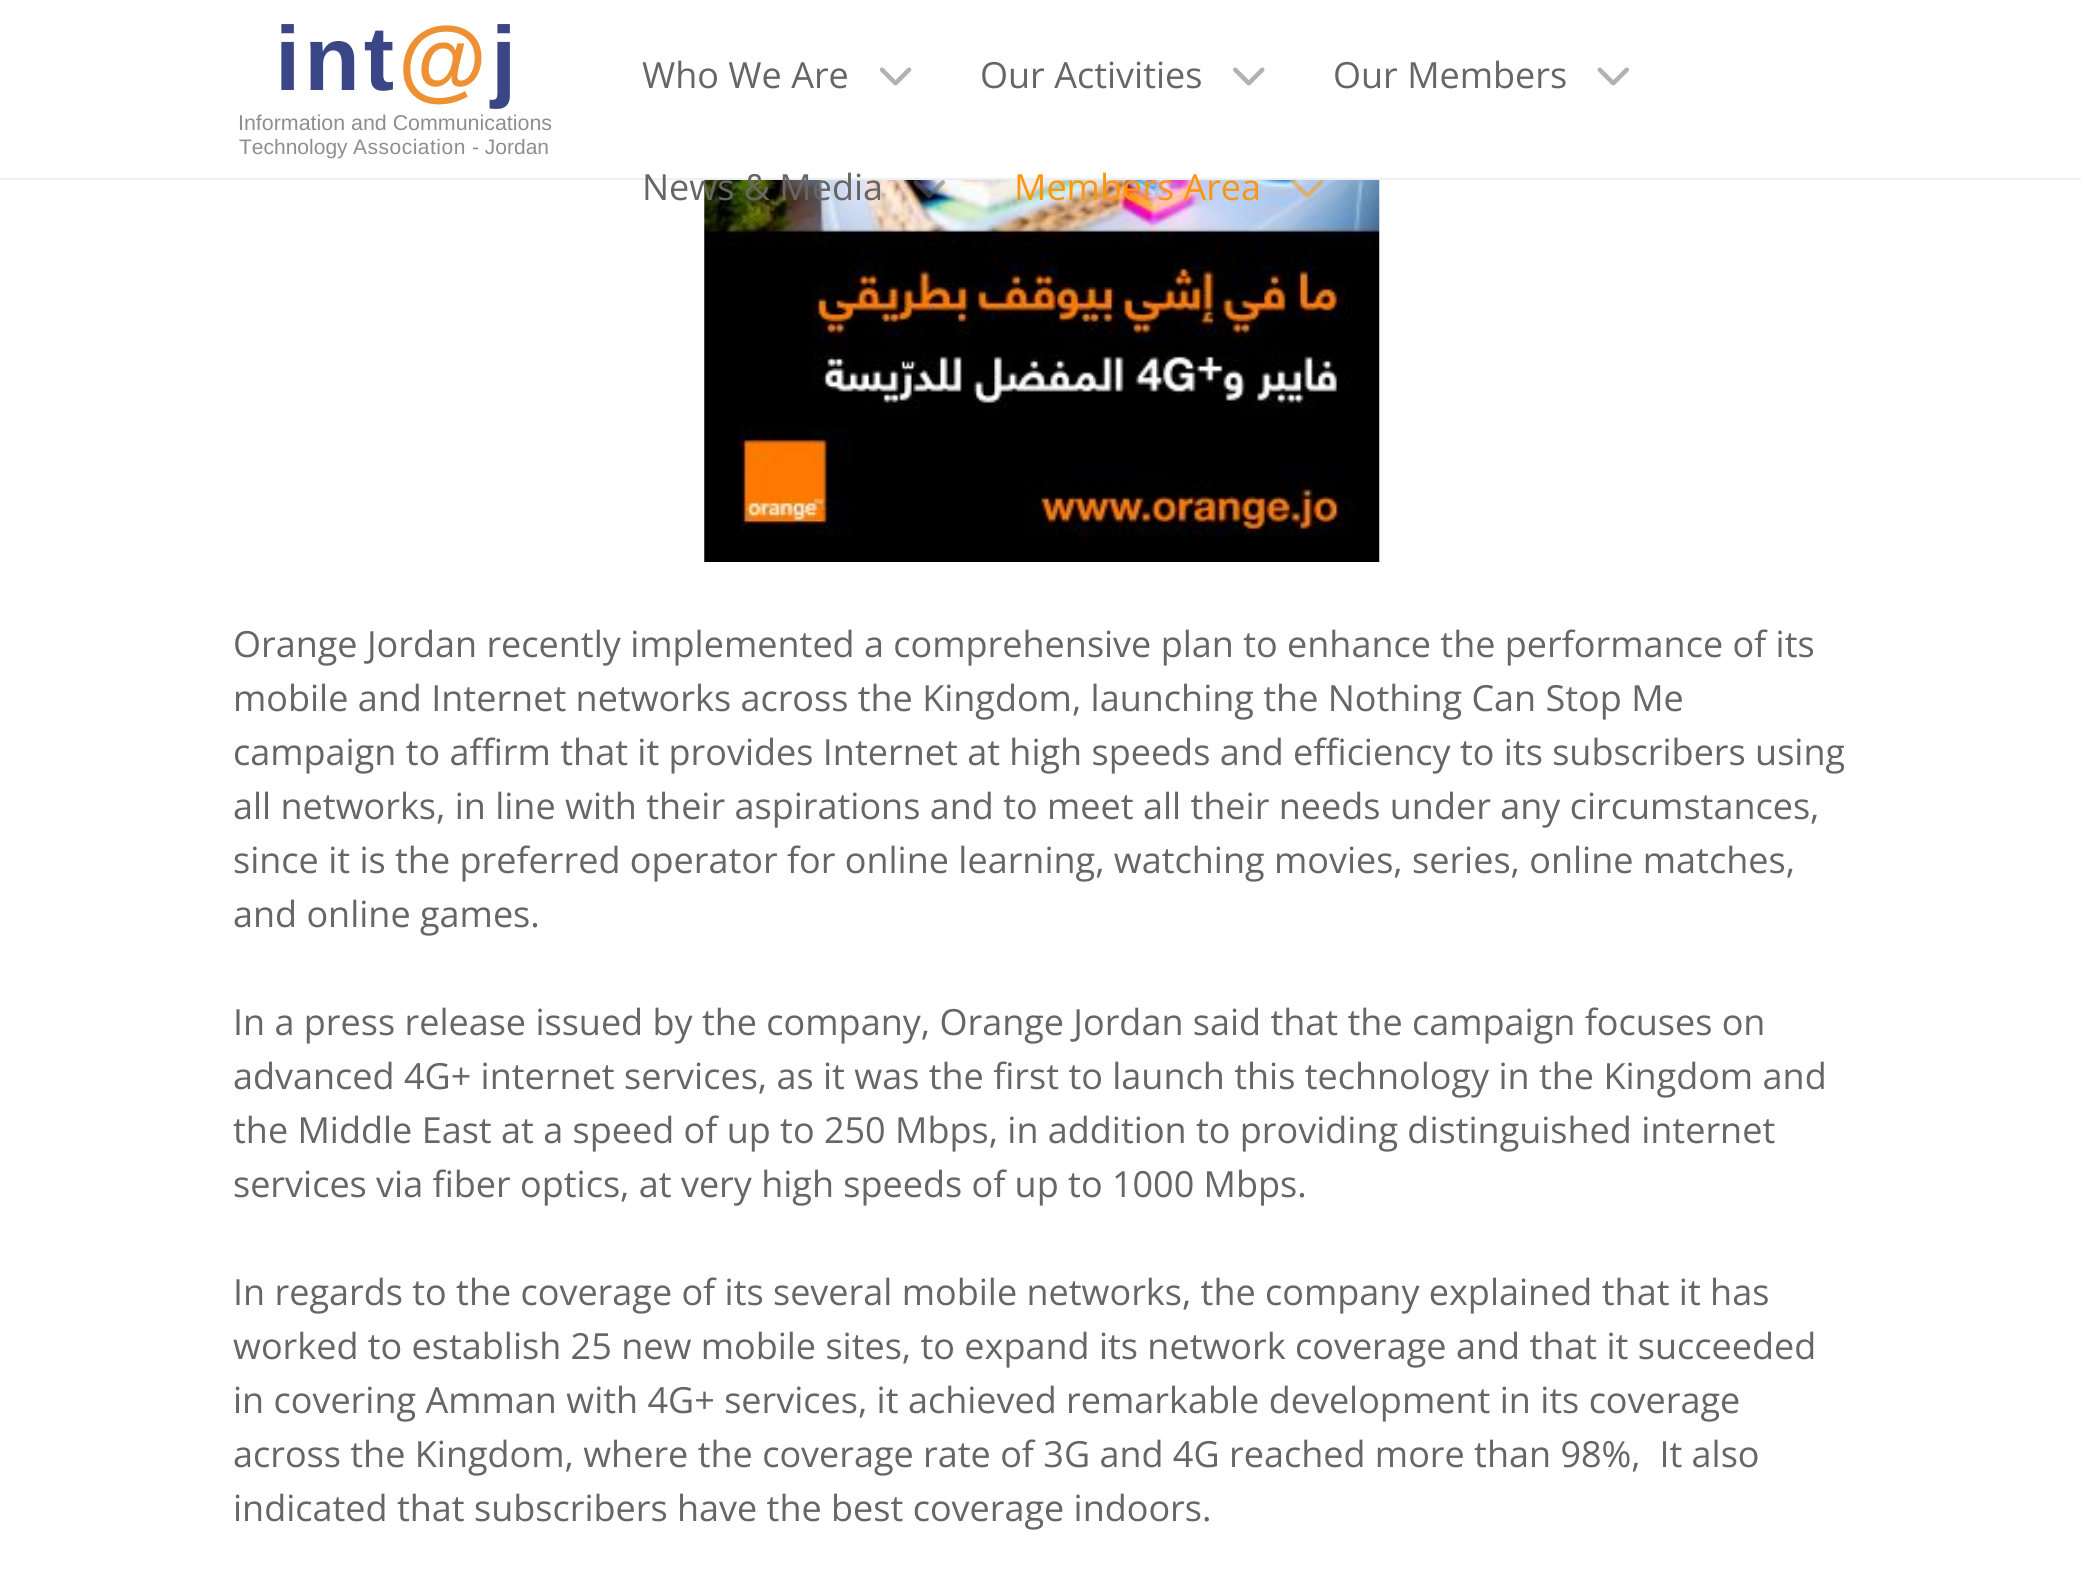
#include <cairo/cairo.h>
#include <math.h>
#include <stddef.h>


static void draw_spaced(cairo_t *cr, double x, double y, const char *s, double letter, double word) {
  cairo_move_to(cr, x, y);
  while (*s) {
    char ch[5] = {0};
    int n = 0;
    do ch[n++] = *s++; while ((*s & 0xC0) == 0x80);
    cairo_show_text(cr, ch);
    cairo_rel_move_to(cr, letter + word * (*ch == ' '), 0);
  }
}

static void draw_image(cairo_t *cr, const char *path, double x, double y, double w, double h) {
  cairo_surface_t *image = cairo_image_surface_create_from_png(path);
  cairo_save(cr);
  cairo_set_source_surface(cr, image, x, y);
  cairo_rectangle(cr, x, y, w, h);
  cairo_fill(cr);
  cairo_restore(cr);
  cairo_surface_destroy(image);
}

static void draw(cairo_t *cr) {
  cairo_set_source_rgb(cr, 1, 1, 1);
  cairo_paint(cr);
  cairo_set_source_rgb(cr, 236 / 255.0, 240 / 255.0, 241 / 255.0);
  cairo_rectangle(cr, 0, 178, 2081, 2);
  cairo_fill(cr);
  draw_image(cr, "images/1.png", 879, 67, 33, 19);
  draw_image(cr, "images/2.png", 1233, 67, 32, 19);
  draw_image(cr, "images/3.png", 1597, 67, 32, 19);
  draw_image(cr, "images/6.png", 704, 180, 676, 382);
  draw_image(cr, "images/4.png", 913, 180, 32, 18);
  draw_image(cr, "images/5.png", 1291, 180, 32, 18);
  cairo_select_font_face(cr, "Liberation Sans", CAIRO_FONT_SLANT_NORMAL, CAIRO_FONT_WEIGHT_BOLD);
  cairo_set_font_size(cr, 91);
  cairo_set_source_rgb(cr, 58 / 255.0, 70 / 255.0, 134 / 255.0);
  draw_spaced(cr, 275, 90, "int", 4, 0);
  cairo_set_source_rgb(cr, 238 / 255.0, 145 / 255.0, 53 / 255.0);
  draw_spaced(cr, 398, 90, "@", 4, 0);
  cairo_set_source_rgb(cr, 58 / 255.0, 70 / 255.0, 134 / 255.0);
  draw_spaced(cr, 491, 90, "j", 4, 0);
  cairo_select_font_face(cr, "Liberation Sans", CAIRO_FONT_SLANT_NORMAL, CAIRO_FONT_WEIGHT_NORMAL);
  cairo_set_font_size(cr, 21.4);
  cairo_set_source_rgb(cr, 142 / 255.0, 142 / 255.0, 142 / 255.0);
  cairo_move_to(cr, 238, 130);
  cairo_show_text(cr, "Information and Communications");
  cairo_set_font_size(cr, 21);
  cairo_move_to(cr, 239, 154);
  cairo_show_text(cr, "Technology");
  draw_spaced(cr, 353, 154, "Association", 0.5, 0);
  cairo_move_to(cr, 472, 154);
  cairo_show_text(cr, "- Jordan");
  cairo_select_font_face(cr, "Open Sans", CAIRO_FONT_SLANT_NORMAL, CAIRO_FONT_WEIGHT_NORMAL);
  cairo_set_font_size(cr, 36);
  cairo_set_source_rgb(cr, 102 / 255.0, 102 / 255.0, 102 / 255.0);
  cairo_move_to(cr, 642, 88);
  cairo_show_text(cr, "Who We Are");
  cairo_move_to(cr, 980, 88);
  cairo_show_text(cr, "Our Activities");
  cairo_move_to(cr, 1333, 88);
  cairo_show_text(cr, "Our Members");
  cairo_move_to(cr, 642, 200);
  cairo_show_text(cr, "News & Media");
  cairo_set_source_rgb(cr, 252 / 255.0, 150 / 255.0, 14 / 255.0);
  cairo_move_to(cr, 1014, 200);
  cairo_show_text(cr, "Members Area");
  cairo_set_source_rgb(cr, 102 / 255.0, 102 / 255.0, 102 / 255.0);
  cairo_move_to(cr, 233, 657);
  cairo_show_text(cr, "Orange Jordan recently implemented a comprehensive plan to enhance the performance of its");
  cairo_move_to(cr, 233, 711);
  cairo_show_text(cr, "mobile and Internet networks across the Kingdom, launching the Nothing Can Stop Me");
  cairo_move_to(cr, 233, 765);
  cairo_show_text(cr, "campaign to affirm that it provides Internet at high speeds and efficiency to its subscribers using");
  cairo_move_to(cr, 233, 819);
  cairo_show_text(cr, "all networks, in line with their aspirations and to meet all their needs under any circumstances,");
  cairo_move_to(cr, 233, 873);
  cairo_show_text(cr, "since it is the preferred operator for online learning, watching movies, series, online matches,");
  cairo_move_to(cr, 233, 927);
  cairo_show_text(cr, "and online games.");
  cairo_move_to(cr, 233, 1035);
  cairo_show_text(cr, "In a press release issued by the company, Orange Jordan said that the campaign focuses on");
  cairo_move_to(cr, 233, 1089);
  cairo_show_text(cr, "advanced 4G+ internet services, as it was the first to launch this technology in the Kingdom and");
  cairo_move_to(cr, 233, 1143);
  cairo_show_text(cr, "the Middle East at a speed of up to 250 Mbps, in addition to providing distinguished internet");
  cairo_move_to(cr, 233, 1197);
  cairo_show_text(cr, "services via fiber optics, at very high speeds of up to 1000 Mbps.");
  cairo_move_to(cr, 233, 1305);
  cairo_show_text(cr, "In regards to the coverage of its several mobile networks, the company explained that it has");
  cairo_move_to(cr, 233, 1359);
  cairo_show_text(cr, "worked to establish 25 new mobile sites, to expand its network coverage and that it succeeded");
  cairo_move_to(cr, 233, 1413);
  cairo_show_text(cr, "in covering Amman with 4G+ services, it achieved remarkable development in its coverage");
  cairo_move_to(cr, 233, 1467);
  cairo_show_text(cr, "across the Kingdom, where the coverage rate of 3G and 4G reached more than 98%,  It also");
  cairo_move_to(cr, 233, 1521);
  cairo_show_text(cr, "indicated that subscribers have the best coverage indoors.");
}

int main(void) {
  cairo_surface_t *surface = cairo_image_surface_create(CAIRO_FORMAT_RGB24, 2081, 1569);
  cairo_t *cr = cairo_create(surface);
  cairo_font_options_t *options = cairo_font_options_create();
  cairo_font_options_set_hint_metrics(options, CAIRO_HINT_METRICS_OFF);
  cairo_font_options_set_hint_style(options, CAIRO_HINT_STYLE_NONE);
  cairo_set_font_options(cr, options);
  cairo_set_miter_limit(cr, 4);
  draw(cr);
  cairo_surface_write_to_png(surface, "out.png");
  cairo_font_options_destroy(options);
  cairo_destroy(cr);
  cairo_surface_destroy(surface);
  return 0;
}
